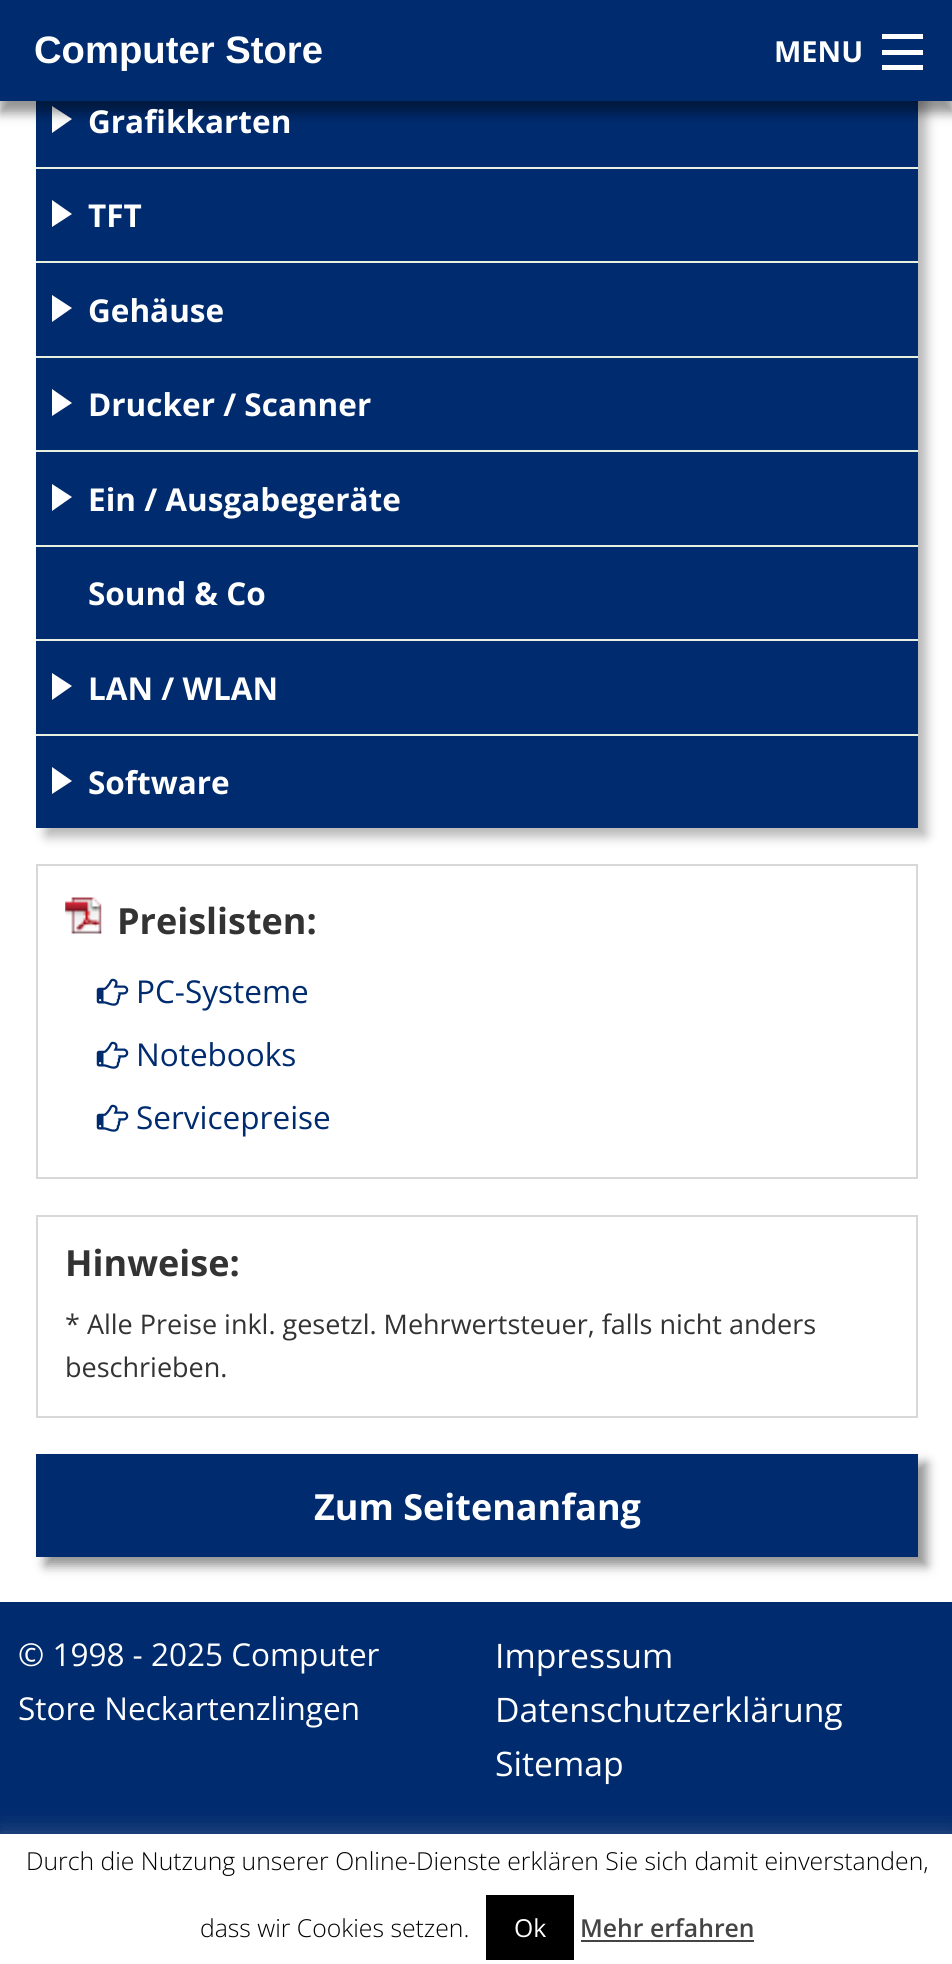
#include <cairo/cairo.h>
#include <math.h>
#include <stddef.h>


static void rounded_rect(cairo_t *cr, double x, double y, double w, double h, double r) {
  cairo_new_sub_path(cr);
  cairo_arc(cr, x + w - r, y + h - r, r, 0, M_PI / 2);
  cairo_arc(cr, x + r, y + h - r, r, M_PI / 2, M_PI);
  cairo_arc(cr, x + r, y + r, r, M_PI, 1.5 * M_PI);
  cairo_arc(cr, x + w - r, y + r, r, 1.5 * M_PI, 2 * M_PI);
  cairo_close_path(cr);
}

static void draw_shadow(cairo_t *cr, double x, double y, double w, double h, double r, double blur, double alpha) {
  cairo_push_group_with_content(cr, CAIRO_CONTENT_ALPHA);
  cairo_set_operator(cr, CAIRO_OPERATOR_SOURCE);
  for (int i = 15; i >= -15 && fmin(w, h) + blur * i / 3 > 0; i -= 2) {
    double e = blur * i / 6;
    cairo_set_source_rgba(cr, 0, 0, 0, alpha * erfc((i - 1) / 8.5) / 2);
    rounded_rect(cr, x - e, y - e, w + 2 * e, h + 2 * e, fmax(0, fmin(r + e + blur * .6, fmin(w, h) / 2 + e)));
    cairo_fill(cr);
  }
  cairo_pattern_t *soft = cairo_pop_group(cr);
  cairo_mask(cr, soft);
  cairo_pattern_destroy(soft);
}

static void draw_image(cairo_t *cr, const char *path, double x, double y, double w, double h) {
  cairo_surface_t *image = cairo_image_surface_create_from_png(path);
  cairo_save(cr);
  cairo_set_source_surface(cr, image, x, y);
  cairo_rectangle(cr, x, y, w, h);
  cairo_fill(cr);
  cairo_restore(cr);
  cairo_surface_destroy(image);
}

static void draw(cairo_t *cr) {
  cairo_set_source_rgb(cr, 1, 1, 1);
  cairo_paint(cr);
  cairo_set_source_rgb(cr, 0, 0, 0);
  draw_shadow(cr, 45, -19, 882, 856, 2, 5.5, 0.28);
  cairo_set_source_rgb(cr, 0, 43 / 255.0, 110 / 255.0);
  cairo_rectangle(cr, 36, 101, 882, 66);
  cairo_fill(cr);
  cairo_set_source_rgb(cr, 1, 1, 1);
  cairo_new_path(cr);
  cairo_move_to(cr, 52, 133);
  cairo_line_to(cr, 52, 106);
  cairo_line_to(cr, 72, 119);
  cairo_close_path(cr);
  cairo_fill(cr);
  cairo_set_source_rgb(cr, 0, 0, 0);
  draw_shadow(cr, 0, 11, 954, 102, 0, 5.5, 0.42);
  cairo_set_source_rgb(cr, 0, 43 / 255.0, 110 / 255.0);
  cairo_rectangle(cr, 0, 0, 952, 101);
  cairo_fill(cr);
  cairo_set_source_rgb(cr, 1, 1, 1);
  cairo_rectangle(cr, 882, 65, 41, 5);
  cairo_fill(cr);
  cairo_rectangle(cr, 882, 50, 41, 5);
  cairo_fill(cr);
  cairo_rectangle(cr, 882, 34, 41, 5);
  cairo_fill(cr);
  cairo_set_source_rgb(cr, 232 / 255.0, 241 / 255.0, 224 / 255.0);
  cairo_rectangle(cr, 36, 167, 882, 2);
  cairo_fill(cr);
  cairo_set_source_rgb(cr, 0, 43 / 255.0, 110 / 255.0);
  cairo_rectangle(cr, 36, 169, 882, 92);
  cairo_fill(cr);
  cairo_set_source_rgb(cr, 1, 1, 1);
  cairo_new_path(cr);
  cairo_move_to(cr, 52, 227);
  cairo_line_to(cr, 52, 200);
  cairo_line_to(cr, 72, 214);
  cairo_close_path(cr);
  cairo_fill(cr);
  cairo_set_source_rgb(cr, 232 / 255.0, 241 / 255.0, 224 / 255.0);
  cairo_rectangle(cr, 36, 261, 882, 2);
  cairo_fill(cr);
  cairo_set_source_rgb(cr, 0, 43 / 255.0, 110 / 255.0);
  cairo_rectangle(cr, 36, 263, 882, 93);
  cairo_fill(cr);
  cairo_set_source_rgb(cr, 1, 1, 1);
  cairo_new_path(cr);
  cairo_move_to(cr, 52, 322);
  cairo_line_to(cr, 52, 295);
  cairo_line_to(cr, 72, 308);
  cairo_close_path(cr);
  cairo_fill(cr);
  cairo_set_source_rgb(cr, 232 / 255.0, 241 / 255.0, 224 / 255.0);
  cairo_rectangle(cr, 36, 356, 882, 2);
  cairo_fill(cr);
  cairo_set_source_rgb(cr, 0, 43 / 255.0, 110 / 255.0);
  cairo_rectangle(cr, 36, 358, 882, 92);
  cairo_fill(cr);
  cairo_set_source_rgb(cr, 1, 1, 1);
  cairo_new_path(cr);
  cairo_move_to(cr, 52, 416);
  cairo_line_to(cr, 52, 389);
  cairo_line_to(cr, 72, 403);
  cairo_close_path(cr);
  cairo_fill(cr);
  cairo_set_source_rgb(cr, 232 / 255.0, 241 / 255.0, 224 / 255.0);
  cairo_rectangle(cr, 36, 450, 882, 2);
  cairo_fill(cr);
  cairo_set_source_rgb(cr, 0, 43 / 255.0, 110 / 255.0);
  cairo_rectangle(cr, 36, 452, 882, 93);
  cairo_fill(cr);
  cairo_set_source_rgb(cr, 1, 1, 1);
  cairo_new_path(cr);
  cairo_move_to(cr, 52, 511);
  cairo_line_to(cr, 52, 484);
  cairo_line_to(cr, 72, 497);
  cairo_close_path(cr);
  cairo_fill(cr);
  cairo_set_source_rgb(cr, 232 / 255.0, 241 / 255.0, 224 / 255.0);
  cairo_rectangle(cr, 36, 545, 882, 2);
  cairo_fill(cr);
  cairo_set_source_rgb(cr, 0, 43 / 255.0, 110 / 255.0);
  cairo_rectangle(cr, 36, 547, 882, 92);
  cairo_fill(cr);
  cairo_set_source_rgb(cr, 232 / 255.0, 241 / 255.0, 224 / 255.0);
  cairo_rectangle(cr, 36, 639, 882, 2);
  cairo_fill(cr);
  cairo_set_source_rgb(cr, 0, 43 / 255.0, 110 / 255.0);
  cairo_rectangle(cr, 36, 641, 882, 93);
  cairo_fill(cr);
  cairo_set_source_rgb(cr, 1, 1, 1);
  cairo_new_path(cr);
  cairo_move_to(cr, 52, 700);
  cairo_line_to(cr, 52, 673);
  cairo_line_to(cr, 72, 686);
  cairo_close_path(cr);
  cairo_fill(cr);
  cairo_set_source_rgb(cr, 232 / 255.0, 241 / 255.0, 224 / 255.0);
  cairo_rectangle(cr, 36, 734, 882, 2);
  cairo_fill(cr);
  cairo_set_source_rgb(cr, 0, 43 / 255.0, 110 / 255.0);
  cairo_rectangle(cr, 36, 736, 882, 92);
  cairo_fill(cr);
  cairo_set_source_rgb(cr, 1, 1, 1);
  cairo_new_path(cr);
  cairo_move_to(cr, 52, 794);
  cairo_line_to(cr, 52, 767);
  cairo_line_to(cr, 72, 781);
  cairo_close_path(cr);
  cairo_fill(cr);
  cairo_rectangle(cr, 37, 865, 880, 313);
  cairo_set_source_rgb(cr, 216 / 255.0, 216 / 255.0, 216 / 255.0);
  cairo_stroke(cr);
  draw_image(cr, "images/1.png", 65, 897, 37, 37);
  draw_image(cr, "images/2.png", 96, 978, 33, 28);
  draw_image(cr, "images/2.png", 96, 1041, 33, 28);
  draw_image(cr, "images/2.png", 96, 1104, 33, 28);
  cairo_rectangle(cr, 37, 1216, 880, 201);
  cairo_stroke(cr);
  cairo_set_source_rgb(cr, 0, 0, 0);
  draw_shadow(cr, 45, 1463, 882, 103, 0, 5.5, 0.42);
  cairo_set_source_rgb(cr, 0, 43 / 255.0, 110 / 255.0);
  cairo_rectangle(cr, 36, 1454, 882, 103);
  cairo_fill(cr);
  cairo_rectangle(cr, 0, 1602, 952, 232);
  cairo_fill(cr);
  cairo_set_source_rgb(cr, 172 / 255.0, 171 / 255.0, 171 / 255.0);
  draw_shadow(cr, 0, 1832, 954, 130, 0, 11, 0.3);
  cairo_set_source_rgb(cr, 1, 1, 1);
  cairo_rectangle(cr, 0, 1834, 952, 130);
  cairo_fill(cr);
  cairo_set_source_rgb(cr, 0, 0, 0);
  cairo_rectangle(cr, 486, 1895, 88, 65);
  cairo_fill(cr);
  cairo_set_source_rgb(cr, 68 / 255.0, 68 / 255.0, 68 / 255.0);
  cairo_rectangle(cr, 581, 1940, 173, 2);
  cairo_fill(cr);
  cairo_select_font_face(cr, "Liberation Sans", CAIRO_FONT_SLANT_NORMAL, CAIRO_FONT_WEIGHT_BOLD);
  cairo_set_font_size(cr, 38.25);
  cairo_set_source_rgb(cr, 1, 1, 1);
  cairo_move_to(cr, 34, 63);
  cairo_show_text(cr, "Computer Store");
  cairo_select_font_face(cr, "Open Sans", CAIRO_FONT_SLANT_NORMAL, CAIRO_FONT_WEIGHT_BOLD);
  cairo_set_font_size(cr, 29);
  cairo_move_to(cr, 774, 62);
  cairo_show_text(cr, "MENU");
  cairo_set_font_size(cr, 31.5);
  cairo_move_to(cr, 88, 133);
  cairo_show_text(cr, "Grafikkarten");
  cairo_move_to(cr, 88, 227);
  cairo_show_text(cr, "TFT");
  cairo_move_to(cr, 88, 322);
  cairo_show_text(cr, "Gehäuse");
  cairo_move_to(cr, 88, 416);
  cairo_show_text(cr, "Drucker / Scanner");
  cairo_move_to(cr, 88, 511);
  cairo_show_text(cr, "Ein / Ausgabegeräte");
  cairo_move_to(cr, 88, 605);
  cairo_show_text(cr, "Sound & Co");
  cairo_move_to(cr, 88, 700);
  cairo_show_text(cr, "LAN / WLAN");
  cairo_move_to(cr, 88, 794);
  cairo_show_text(cr, "Software");
  cairo_set_font_size(cr, 36);
  cairo_set_source_rgb(cr, 51 / 255.0, 51 / 255.0, 51 / 255.0);
  cairo_move_to(cr, 117, 934);
  cairo_show_text(cr, "Preislisten:");
  cairo_select_font_face(cr, "Open Sans", CAIRO_FONT_SLANT_NORMAL, CAIRO_FONT_WEIGHT_NORMAL);
  cairo_set_font_size(cr, 31.5);
  cairo_set_source_rgb(cr, 0, 43 / 255.0, 110 / 255.0);
  cairo_move_to(cr, 136, 1003);
  cairo_show_text(cr, "PC-Systeme");
  cairo_move_to(cr, 136, 1066);
  cairo_show_text(cr, "Notebooks");
  cairo_move_to(cr, 136, 1129);
  cairo_show_text(cr, "Servicepreise");
  cairo_select_font_face(cr, "Open Sans", CAIRO_FONT_SLANT_NORMAL, CAIRO_FONT_WEIGHT_BOLD);
  cairo_set_font_size(cr, 36);
  cairo_set_source_rgb(cr, 51 / 255.0, 51 / 255.0, 51 / 255.0);
  cairo_move_to(cr, 65, 1276);
  cairo_show_text(cr, "Hinweise:");
  cairo_select_font_face(cr, "Open Sans", CAIRO_FONT_SLANT_NORMAL, CAIRO_FONT_WEIGHT_NORMAL);
  cairo_set_font_size(cr, 27);
  cairo_move_to(cr, 65, 1334);
  cairo_show_text(cr, "* Alle Preise inkl. gesetzl. Mehrwertsteuer, falls nicht anders");
  cairo_move_to(cr, 65, 1377);
  cairo_show_text(cr, "beschrieben.");
  cairo_select_font_face(cr, "Open Sans", CAIRO_FONT_SLANT_NORMAL, CAIRO_FONT_WEIGHT_BOLD);
  cairo_set_font_size(cr, 36);
  cairo_set_source_rgb(cr, 1, 1, 1);
  cairo_move_to(cr, 314, 1520);
  cairo_show_text(cr, "Zum Seitenanfang");
  cairo_select_font_face(cr, "Open Sans", CAIRO_FONT_SLANT_NORMAL, CAIRO_FONT_WEIGHT_NORMAL);
  cairo_set_font_size(cr, 31.5);
  cairo_move_to(cr, 18, 1666);
  cairo_show_text(cr, "© 1998 - 2025 Computer");
  cairo_move_to(cr, 18, 1720);
  cairo_show_text(cr, "Store Neckartenzlingen");
  cairo_set_font_size(cr, 33.75);
  cairo_move_to(cr, 495, 1668);
  cairo_show_text(cr, "Impressum");
  cairo_move_to(cr, 495, 1722);
  cairo_show_text(cr, "Datenschutzerklärung");
  cairo_move_to(cr, 495, 1776);
  cairo_show_text(cr, "Sitemap");
  cairo_select_font_face(cr, "Open Sans Light", CAIRO_FONT_SLANT_NORMAL, CAIRO_FONT_WEIGHT_NORMAL);
  cairo_set_font_size(cr, 24.75);
  cairo_set_source_rgb(cr, 0, 0, 0);
  cairo_move_to(cr, 26, 1870);
  cairo_show_text(cr, "Durch die Nutzung unserer Online-Dienste erklären Sie sich damit einverstanden,");
  cairo_move_to(cr, 200, 1937);
  cairo_show_text(cr, "dass wir Cookies setzen.");
  cairo_select_font_face(cr, "Open Sans", CAIRO_FONT_SLANT_NORMAL, CAIRO_FONT_WEIGHT_NORMAL);
  cairo_set_source_rgb(cr, 1, 1, 1);
  cairo_move_to(cr, 514, 1937);
  cairo_show_text(cr, "Ok");
  cairo_select_font_face(cr, "Open Sans SemiBold", CAIRO_FONT_SLANT_NORMAL, CAIRO_FONT_WEIGHT_NORMAL);
  cairo_set_source_rgb(cr, 68 / 255.0, 68 / 255.0, 68 / 255.0);
  cairo_move_to(cr, 580, 1937);
  cairo_show_text(cr, "Mehr erfahren");
}

int main(void) {
  cairo_surface_t *surface = cairo_image_surface_create(CAIRO_FORMAT_RGB24, 952, 1964);
  cairo_t *cr = cairo_create(surface);
  cairo_font_options_t *options = cairo_font_options_create();
  cairo_font_options_set_hint_metrics(options, CAIRO_HINT_METRICS_OFF);
  cairo_font_options_set_hint_style(options, CAIRO_HINT_STYLE_NONE);
  cairo_set_font_options(cr, options);
  cairo_set_miter_limit(cr, 4);
  draw(cr);
  cairo_surface_write_to_png(surface, "out.png");
  cairo_font_options_destroy(options);
  cairo_destroy(cr);
  cairo_surface_destroy(surface);
  return 0;
}
